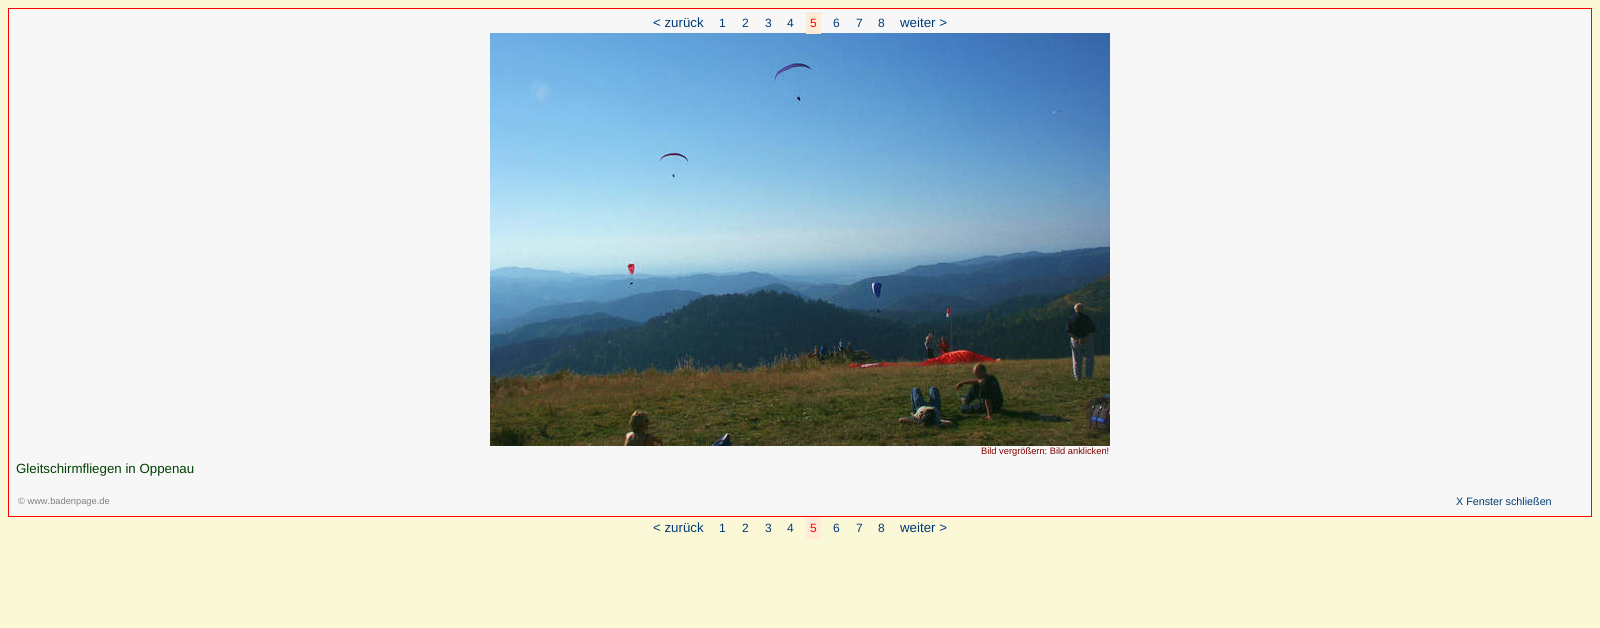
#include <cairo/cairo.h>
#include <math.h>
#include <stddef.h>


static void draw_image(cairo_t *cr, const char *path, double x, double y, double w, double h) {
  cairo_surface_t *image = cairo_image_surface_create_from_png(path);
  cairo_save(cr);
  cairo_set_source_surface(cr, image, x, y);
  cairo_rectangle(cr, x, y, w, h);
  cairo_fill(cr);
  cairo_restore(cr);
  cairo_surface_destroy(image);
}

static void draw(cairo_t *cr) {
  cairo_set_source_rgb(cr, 251 / 255.0, 248 / 255.0, 216 / 255.0);
  cairo_paint(cr);
  cairo_set_source_rgb(cr, 247 / 255.0, 247 / 255.0, 247 / 255.0);
  cairo_rectangle(cr, 8.5, 8.5, 1583, 508);
  cairo_fill_preserve(cr);
  cairo_set_source_rgb(cr, 1, 0, 0);
  cairo_set_line_width(cr, 1);
  cairo_stroke(cr);
  draw_image(cr, "images/1.png", 490, 33, 620, 413);
  cairo_set_source_rgb(cr, 254 / 255.0, 235 / 255.0, 216 / 255.0);
  cairo_rectangle(cr, 806, 12, 15, 22);
  cairo_fill(cr);
  cairo_rectangle(cr, 806, 517, 15, 22);
  cairo_fill(cr);
  cairo_select_font_face(cr, "Liberation Sans", CAIRO_FONT_SLANT_NORMAL, CAIRO_FONT_WEIGHT_NORMAL);
  cairo_set_font_size(cr, 13.3);
  cairo_set_source_rgb(cr, 0, 58 / 255.0, 117 / 255.0);
  cairo_move_to(cr, 653, 27);
  cairo_show_text(cr, "< zurück");
  cairo_set_font_size(cr, 12);
  cairo_move_to(cr, 719, 27);
  cairo_show_text(cr, "1");
  cairo_move_to(cr, 742, 27);
  cairo_show_text(cr, "2");
  cairo_move_to(cr, 765, 27);
  cairo_show_text(cr, "3");
  cairo_move_to(cr, 787, 27);
  cairo_show_text(cr, "4");
  cairo_set_source_rgb(cr, 1, 0, 0);
  cairo_move_to(cr, 810, 27);
  cairo_show_text(cr, "5");
  cairo_set_source_rgb(cr, 0, 58 / 255.0, 117 / 255.0);
  cairo_move_to(cr, 833, 27);
  cairo_show_text(cr, "6");
  cairo_move_to(cr, 856, 27);
  cairo_show_text(cr, "7");
  cairo_move_to(cr, 878, 27);
  cairo_show_text(cr, "8");
  cairo_set_font_size(cr, 13.3);
  cairo_move_to(cr, 900, 27);
  cairo_show_text(cr, "weiter >");
  cairo_set_font_size(cr, 9.3);
  cairo_set_source_rgb(cr, 128 / 255.0, 0, 0);
  cairo_move_to(cr, 981, 454);
  cairo_show_text(cr, "Bild vergrößern: Bild anklicken!");
  cairo_set_font_size(cr, 13.3);
  cairo_set_source_rgb(cr, 0, 64 / 255.0, 0);
  cairo_move_to(cr, 16, 473);
  cairo_show_text(cr, "Gleitschirmfliegen in Oppenau");
  cairo_set_font_size(cr, 9.3);
  cairo_set_source_rgb(cr, 128 / 255.0, 128 / 255.0, 128 / 255.0);
  cairo_move_to(cr, 18, 504);
  cairo_show_text(cr, "© www.badenpage.de");
  cairo_set_font_size(cr, 10.75);
  cairo_set_source_rgb(cr, 0, 58 / 255.0, 117 / 255.0);
  cairo_move_to(cr, 1456, 505);
  cairo_show_text(cr, "X Fenster schließen");
  cairo_set_font_size(cr, 13.3);
  cairo_move_to(cr, 653, 532);
  cairo_show_text(cr, "< zurück");
  cairo_set_font_size(cr, 12);
  cairo_move_to(cr, 719, 532);
  cairo_show_text(cr, "1");
  cairo_move_to(cr, 742, 532);
  cairo_show_text(cr, "2");
  cairo_move_to(cr, 765, 532);
  cairo_show_text(cr, "3");
  cairo_move_to(cr, 787, 532);
  cairo_show_text(cr, "4");
  cairo_set_source_rgb(cr, 1, 0, 0);
  cairo_move_to(cr, 810, 532);
  cairo_show_text(cr, "5");
  cairo_set_source_rgb(cr, 0, 58 / 255.0, 117 / 255.0);
  cairo_move_to(cr, 833, 532);
  cairo_show_text(cr, "6");
  cairo_move_to(cr, 856, 532);
  cairo_show_text(cr, "7");
  cairo_move_to(cr, 878, 532);
  cairo_show_text(cr, "8");
  cairo_set_font_size(cr, 13.3);
  cairo_move_to(cr, 900, 532);
  cairo_show_text(cr, "weiter >");
}

int main(void) {
  cairo_surface_t *surface = cairo_image_surface_create(CAIRO_FORMAT_RGB24, 1600, 628);
  cairo_t *cr = cairo_create(surface);
  cairo_font_options_t *options = cairo_font_options_create();
  cairo_font_options_set_hint_metrics(options, CAIRO_HINT_METRICS_OFF);
  cairo_font_options_set_hint_style(options, CAIRO_HINT_STYLE_NONE);
  cairo_set_font_options(cr, options);
  cairo_set_miter_limit(cr, 4);
  draw(cr);
  cairo_surface_write_to_png(surface, "out.png");
  cairo_font_options_destroy(options);
  cairo_destroy(cr);
  cairo_surface_destroy(surface);
  return 0;
}
